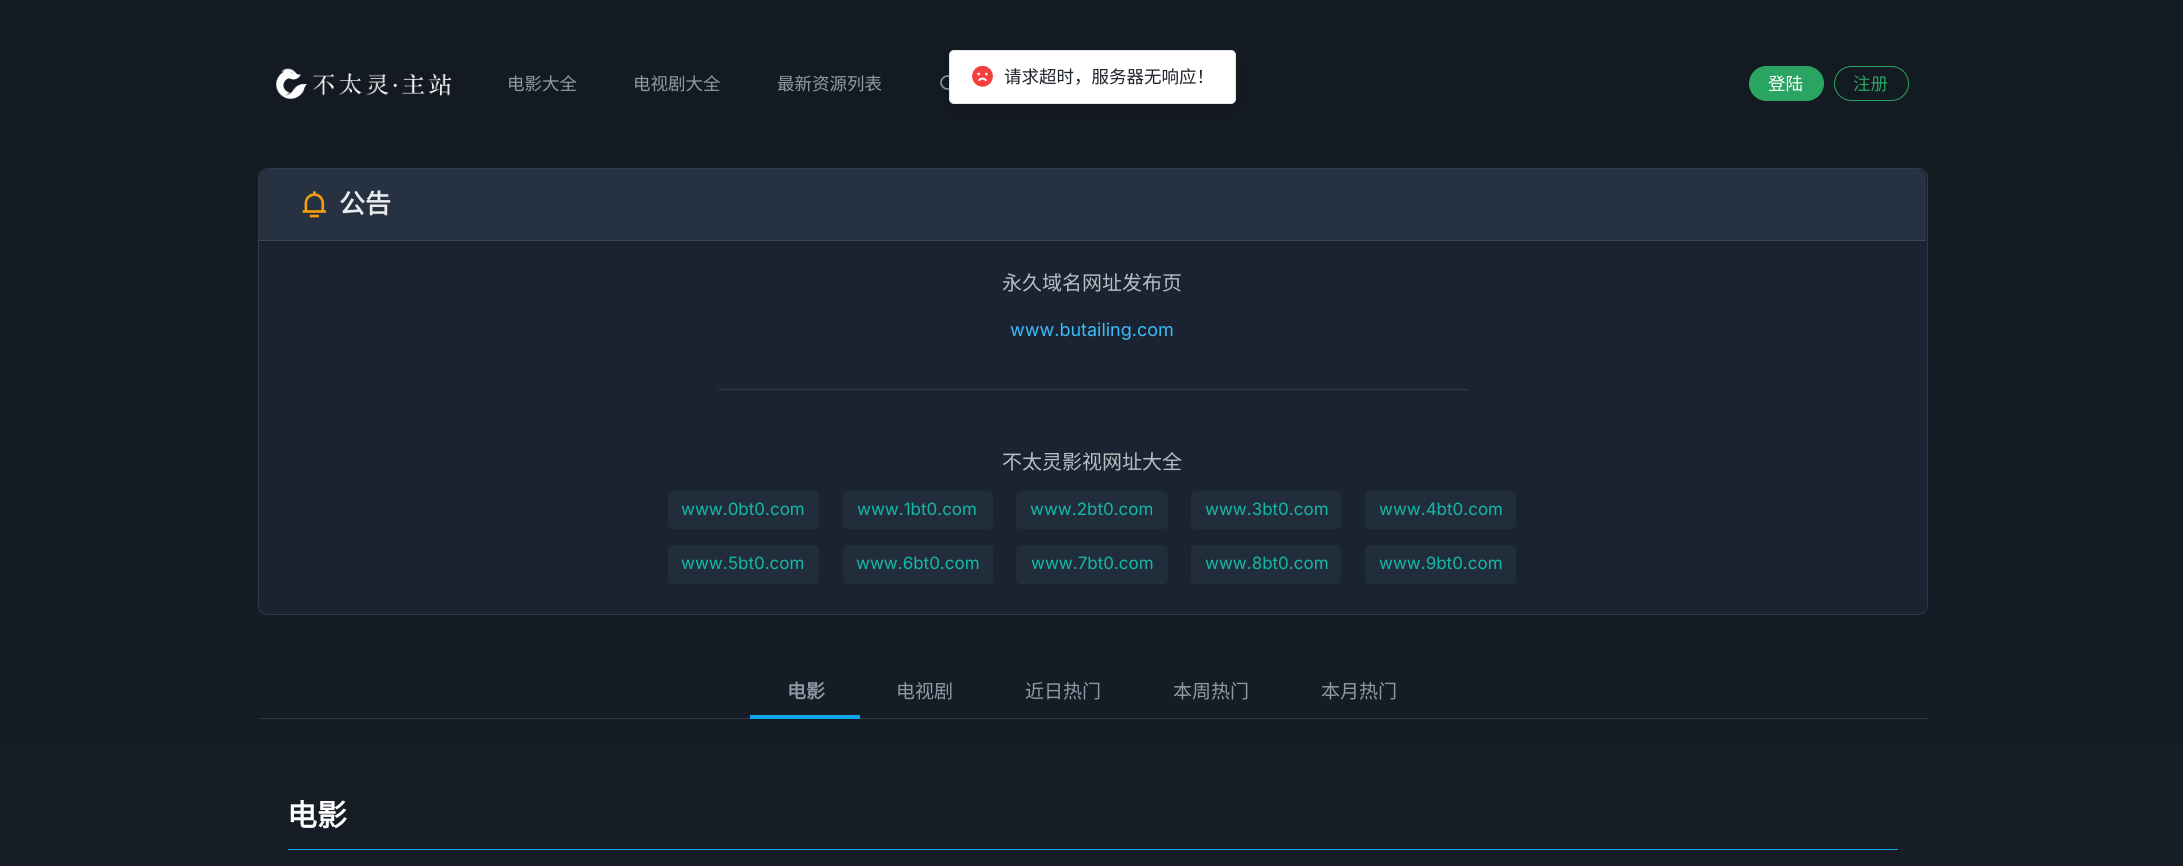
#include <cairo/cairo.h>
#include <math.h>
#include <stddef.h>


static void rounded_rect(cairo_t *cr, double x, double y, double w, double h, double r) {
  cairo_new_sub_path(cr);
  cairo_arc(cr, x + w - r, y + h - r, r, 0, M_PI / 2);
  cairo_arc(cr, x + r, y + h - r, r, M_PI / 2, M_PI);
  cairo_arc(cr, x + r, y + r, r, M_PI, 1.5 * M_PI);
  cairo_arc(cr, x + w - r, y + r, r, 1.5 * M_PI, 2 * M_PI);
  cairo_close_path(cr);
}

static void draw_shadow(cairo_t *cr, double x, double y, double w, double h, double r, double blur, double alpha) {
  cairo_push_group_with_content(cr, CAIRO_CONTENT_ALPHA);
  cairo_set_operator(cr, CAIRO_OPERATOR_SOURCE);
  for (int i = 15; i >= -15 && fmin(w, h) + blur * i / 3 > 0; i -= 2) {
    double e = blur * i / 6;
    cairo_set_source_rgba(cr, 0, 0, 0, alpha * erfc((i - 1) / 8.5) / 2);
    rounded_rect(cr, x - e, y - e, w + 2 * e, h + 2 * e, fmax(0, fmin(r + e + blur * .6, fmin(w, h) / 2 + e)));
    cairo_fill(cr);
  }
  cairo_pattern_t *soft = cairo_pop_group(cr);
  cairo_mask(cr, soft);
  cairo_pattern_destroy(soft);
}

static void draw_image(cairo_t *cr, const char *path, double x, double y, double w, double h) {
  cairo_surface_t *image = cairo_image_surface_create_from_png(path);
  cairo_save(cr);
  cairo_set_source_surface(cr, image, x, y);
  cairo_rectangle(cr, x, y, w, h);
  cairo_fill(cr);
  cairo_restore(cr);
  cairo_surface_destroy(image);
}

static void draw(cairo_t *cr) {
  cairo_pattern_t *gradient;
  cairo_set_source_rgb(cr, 1, 1, 1);
  cairo_paint(cr);
  gradient = cairo_pattern_create_linear(1092, 0, 1092, 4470);
  cairo_pattern_add_color_stop_rgba(gradient, 0, 20 / 255.0, 26 / 255.0, 34 / 255.0, 1);
  cairo_pattern_add_color_stop_rgba(gradient, 1, 31 / 255.0, 41 / 255.0, 53 / 255.0, 1);
  cairo_set_source(cr, gradient);
  cairo_pattern_destroy(gradient);
  cairo_rectangle(cr, 0, 0, 2183, 866);
  cairo_fill(cr);
  cairo_new_path(cr);
  cairo_move_to(cr, 952, 87);
  cairo_curve_to(cr, 958, 81, 949, 72, 943, 78);
  cairo_curve_to(cr, 937, 84, 946, 93, 952, 87);
  cairo_close_path(cr);
  cairo_move_to(cr, 952, 87);
  cairo_line_to(cr, 955.5, 90.5);
  cairo_set_source_rgb(cr, 144 / 255.0, 153 / 255.0, 165 / 255.0);
  cairo_set_line_width(cr, 1.6);
  cairo_stroke(cr);
  cairo_set_source_rgb(cr, 0, 0, 0);
  draw_shadow(cr, 949, 55, 287, 54, 5, 6, 0.1);
  cairo_set_source_rgb(cr, 1, 1, 1);
  rounded_rect(cr, 949.5, 50.5, 286, 53, 4.5);
  cairo_fill_preserve(cr);
  cairo_set_source_rgb(cr, 229 / 255.0, 230 / 255.0, 235 / 255.0);
  cairo_set_line_width(cr, 1);
  cairo_stroke(cr);
  draw_image(cr, "images/1.png", 972, 65, 21, 22);
  draw_image(cr, "images/2.png", 276, 68, 176, 31);
  cairo_set_source_rgb(cr, 42 / 255.0, 164 / 255.0, 97 / 255.0);
  rounded_rect(cr, 1749.5, 66.5, 74, 34, 17);
  cairo_fill_preserve(cr);
  cairo_stroke(cr);
  rounded_rect(cr, 1834.5, 66.5, 74, 34, 17);
  cairo_stroke(cr);
  cairo_set_source_rgba(cr, 30 / 255.0, 41 / 255.0, 59 / 255.0, 0.6);
  rounded_rect(cr, 258, 168, 1670, 447, 10);
  cairo_fill(cr);
  rounded_rect(cr, 258.5, 168.5, 1669, 446, 9.5);
  cairo_set_source_rgba(cr, 1, 1, 1, 0.1);
  cairo_stroke(cr);
  cairo_set_source_rgba(cr, 51 / 255.0, 65 / 255.0, 85 / 255.0, 0.5);
  cairo_new_path(cr);
  cairo_move_to(cr, 269, 169);
  cairo_line_to(cr, 1916, 169);
  cairo_curve_to(cr, 1921.5, 169, 1926, 173.5, 1926, 179);
  cairo_line_to(cr, 1926, 241);
  cairo_line_to(cr, 259, 241);
  cairo_line_to(cr, 259, 179);
  cairo_curve_to(cr, 259, 173.5, 263.5, 169, 269, 169);
  cairo_close_path(cr);
  cairo_fill(cr);
  cairo_set_source_rgb(cr, 60 / 255.0, 71 / 255.0, 86 / 255.0);
  cairo_rectangle(cr, 259, 240, 1667, 1);
  cairo_fill(cr);
  draw_image(cr, "images/3.png", 302, 191, 25, 27);
  cairo_set_source_rgb(cr, 49 / 255.0, 57 / 255.0, 70 / 255.0);
  cairo_rectangle(cr, 718, 389, 750, 1);
  cairo_fill(cr);
  cairo_set_source_rgb(cr, 34 / 255.0, 45 / 255.0, 60 / 255.0);
  rounded_rect(cr, 668, 491, 151, 38, 5);
  cairo_fill(cr);
  rounded_rect(cr, 843, 491, 150, 38, 5);
  cairo_fill(cr);
  rounded_rect(cr, 1016, 491, 152, 38, 5);
  cairo_fill(cr);
  rounded_rect(cr, 1191, 491, 150, 38, 5);
  cairo_fill(cr);
  rounded_rect(cr, 1365, 491, 151, 38, 5);
  cairo_fill(cr);
  rounded_rect(cr, 668, 545, 151, 39, 5);
  cairo_fill(cr);
  rounded_rect(cr, 843, 545, 150, 39, 5);
  cairo_fill(cr);
  rounded_rect(cr, 1016, 545, 152, 39, 5);
  cairo_fill(cr);
  rounded_rect(cr, 1191, 545, 150, 39, 5);
  cairo_fill(cr);
  rounded_rect(cr, 1365, 545, 151, 39, 5);
  cairo_fill(cr);
  cairo_set_source_rgb(cr, 45 / 255.0, 51 / 255.0, 59 / 255.0);
  cairo_rectangle(cr, 258, 718, 1670, 1);
  cairo_fill(cr);
  cairo_set_source_rgb(cr, 14 / 255.0, 165 / 255.0, 233 / 255.0);
  cairo_rectangle(cr, 750, 715, 110, 4);
  cairo_fill(cr);
  cairo_rectangle(cr, 288, 849, 1610, 1);
  cairo_fill(cr);
  cairo_select_font_face(cr, "Noto Sans CJK SC", CAIRO_FONT_SLANT_NORMAL, CAIRO_FONT_WEIGHT_NORMAL);
  cairo_set_font_size(cr, 17.5);
  cairo_set_source_rgb(cr, 29 / 255.0, 33 / 255.0, 41 / 255.0);
  cairo_move_to(cr, 1004, 83);
  cairo_show_text(cr, "请求超时，服务器无响应！");
  cairo_set_source_rgb(cr, 144 / 255.0, 153 / 255.0, 165 / 255.0);
  cairo_move_to(cr, 507, 90);
  cairo_show_text(cr, "电影大全");
  cairo_move_to(cr, 633, 90);
  cairo_show_text(cr, "电视剧大全");
  cairo_move_to(cr, 777, 90);
  cairo_show_text(cr, "最新资源列表");
  cairo_set_source_rgb(cr, 1, 1, 1);
  cairo_move_to(cr, 1768, 90);
  cairo_show_text(cr, "登陆");
  cairo_set_source_rgb(cr, 42 / 255.0, 164 / 255.0, 97 / 255.0);
  cairo_move_to(cr, 1853, 90);
  cairo_show_text(cr, "注册");
  cairo_select_font_face(cr, "Noto Sans CJK SC", CAIRO_FONT_SLANT_NORMAL, CAIRO_FONT_WEIGHT_BOLD);
  cairo_set_font_size(cr, 26);
  cairo_set_source_rgb(cr, 233 / 255.0, 235 / 255.0, 236 / 255.0);
  cairo_move_to(cr, 339, 213);
  cairo_show_text(cr, "公告");
  cairo_select_font_face(cr, "Noto Sans CJK SC", CAIRO_FONT_SLANT_NORMAL, CAIRO_FONT_WEIGHT_NORMAL);
  cairo_set_font_size(cr, 20);
  cairo_set_source_rgb(cr, 186 / 255.0, 189 / 255.0, 193 / 255.0);
  cairo_move_to(cr, 1002, 290);
  cairo_show_text(cr, "永久域名网址发布页");
  cairo_select_font_face(cr, "Inter", CAIRO_FONT_SLANT_NORMAL, CAIRO_FONT_WEIGHT_NORMAL);
  cairo_set_font_size(cr, 18);
  cairo_set_source_rgb(cr, 56 / 255.0, 189 / 255.0, 248 / 255.0);
  cairo_move_to(cr, 1010, 336);
  cairo_show_text(cr, "www.butailing.com");
  cairo_select_font_face(cr, "Noto Sans CJK SC", CAIRO_FONT_SLANT_NORMAL, CAIRO_FONT_WEIGHT_NORMAL);
  cairo_set_font_size(cr, 20);
  cairo_set_source_rgb(cr, 186 / 255.0, 189 / 255.0, 193 / 255.0);
  cairo_move_to(cr, 1002, 469);
  cairo_show_text(cr, "不太灵影视网址大全");
  cairo_select_font_face(cr, "Inter", CAIRO_FONT_SLANT_NORMAL, CAIRO_FONT_WEIGHT_NORMAL);
  cairo_set_font_size(cr, 17);
  cairo_set_source_rgb(cr, 20 / 255.0, 184 / 255.0, 166 / 255.0);
  cairo_move_to(cr, 681, 515);
  cairo_show_text(cr, "www.0bt0.com");
  cairo_move_to(cr, 857, 515);
  cairo_show_text(cr, "www.1bt0.com");
  cairo_move_to(cr, 1030, 515);
  cairo_show_text(cr, "www.2bt0.com");
  cairo_move_to(cr, 1205, 515);
  cairo_show_text(cr, "www.3bt0.com");
  cairo_move_to(cr, 1379, 515);
  cairo_show_text(cr, "www.4bt0.com");
  cairo_move_to(cr, 681, 569);
  cairo_show_text(cr, "www.5bt0.com");
  cairo_move_to(cr, 856, 569);
  cairo_show_text(cr, "www.6bt0.com");
  cairo_move_to(cr, 1031, 569);
  cairo_show_text(cr, "www.7bt0.com");
  cairo_move_to(cr, 1205, 569);
  cairo_show_text(cr, "www.8bt0.com");
  cairo_move_to(cr, 1379, 569);
  cairo_show_text(cr, "www.9bt0.com");
  cairo_select_font_face(cr, "Noto Sans CJK SC", CAIRO_FONT_SLANT_NORMAL, CAIRO_FONT_WEIGHT_BOLD);
  cairo_set_font_size(cr, 19);
  cairo_set_source_rgb(cr, 144 / 255.0, 153 / 255.0, 165 / 255.0);
  cairo_move_to(cr, 787, 698);
  cairo_show_text(cr, "电影");
  cairo_select_font_face(cr, "Noto Sans CJK SC", CAIRO_FONT_SLANT_NORMAL, CAIRO_FONT_WEIGHT_NORMAL);
  cairo_move_to(cr, 896, 698);
  cairo_show_text(cr, "电视剧");
  cairo_move_to(cr, 1025, 698);
  cairo_show_text(cr, "近日热门");
  cairo_move_to(cr, 1173, 698);
  cairo_show_text(cr, "本周热门");
  cairo_move_to(cr, 1321, 698);
  cairo_show_text(cr, "本月热门");
  cairo_select_font_face(cr, "Noto Sans CJK SC", CAIRO_FONT_SLANT_NORMAL, CAIRO_FONT_WEIGHT_BOLD);
  cairo_set_font_size(cr, 30);
  cairo_set_source_rgb(cr, 1, 1, 1);
  cairo_move_to(cr, 287, 826);
  cairo_show_text(cr, "电影");
}

int main(void) {
  cairo_surface_t *surface = cairo_image_surface_create(CAIRO_FORMAT_RGB24, 2183, 866);
  cairo_t *cr = cairo_create(surface);
  cairo_font_options_t *options = cairo_font_options_create();
  cairo_font_options_set_hint_metrics(options, CAIRO_HINT_METRICS_OFF);
  cairo_font_options_set_hint_style(options, CAIRO_HINT_STYLE_NONE);
  cairo_set_font_options(cr, options);
  cairo_set_miter_limit(cr, 4);
  draw(cr);
  cairo_surface_write_to_png(surface, "out.png");
  cairo_font_options_destroy(options);
  cairo_destroy(cr);
  cairo_surface_destroy(surface);
  return 0;
}
